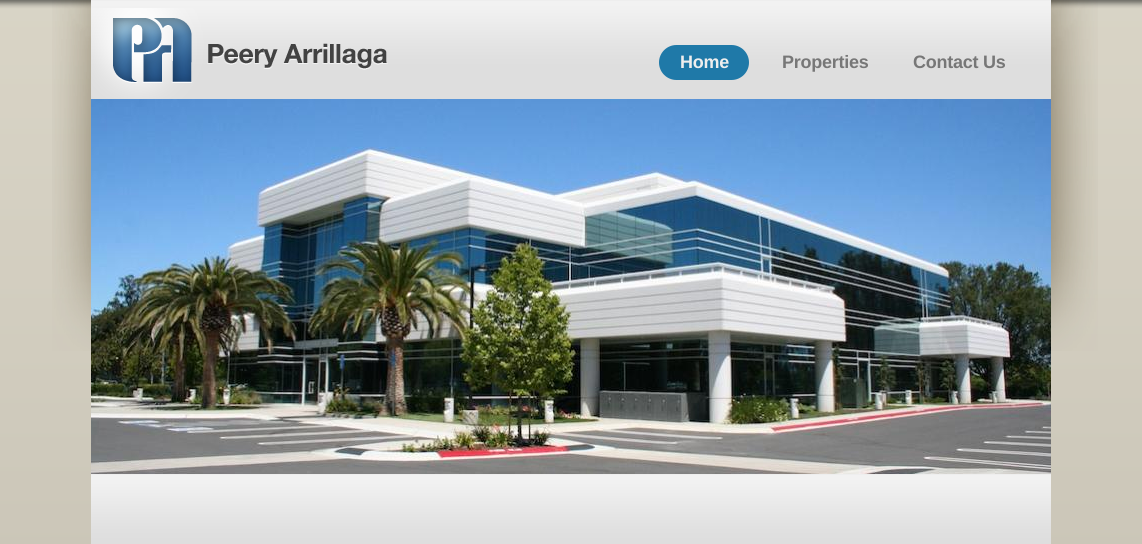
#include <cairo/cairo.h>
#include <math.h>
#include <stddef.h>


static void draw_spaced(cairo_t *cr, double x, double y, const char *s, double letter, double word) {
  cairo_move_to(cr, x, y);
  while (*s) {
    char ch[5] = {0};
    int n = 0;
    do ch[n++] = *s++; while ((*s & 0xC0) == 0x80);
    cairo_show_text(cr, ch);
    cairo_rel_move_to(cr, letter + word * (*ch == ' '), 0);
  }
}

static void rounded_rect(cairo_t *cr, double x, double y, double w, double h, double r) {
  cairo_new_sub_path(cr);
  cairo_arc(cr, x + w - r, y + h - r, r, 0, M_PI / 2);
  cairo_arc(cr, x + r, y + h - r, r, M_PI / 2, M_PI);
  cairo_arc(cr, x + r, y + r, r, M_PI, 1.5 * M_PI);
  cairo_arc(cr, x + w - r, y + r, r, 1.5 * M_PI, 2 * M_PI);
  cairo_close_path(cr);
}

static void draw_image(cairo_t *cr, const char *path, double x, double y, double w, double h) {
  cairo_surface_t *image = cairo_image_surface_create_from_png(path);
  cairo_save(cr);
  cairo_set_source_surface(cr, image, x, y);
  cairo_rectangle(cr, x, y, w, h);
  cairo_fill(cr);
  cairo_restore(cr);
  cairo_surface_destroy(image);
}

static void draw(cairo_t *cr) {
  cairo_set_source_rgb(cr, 1, 1, 1);
  cairo_paint(cr);
  draw_image(cr, "images/1.png", 0, 0, 1142, 544);
  draw_image(cr, "images/2.png", 52, 0, 1046, 351);
  draw_image(cr, "images/3.png", 91, 0, 960, 99);
  draw_image(cr, "images/4.png", 91, 8, 297, 91);
  cairo_set_source_rgb(cr, 31 / 255.0, 121 / 255.0, 168 / 255.0);
  rounded_rect(cr, 659, 45, 90, 35, 17.5);
  cairo_fill(cr);
  draw_image(cr, "images/5.png", 91, 99, 960, 375);
  draw_image(cr, "images/6.png", 91, 474, 960, 70);
  cairo_select_font_face(cr, "Liberation Sans", CAIRO_FONT_SLANT_NORMAL, CAIRO_FONT_WEIGHT_BOLD);
  cairo_set_font_size(cr, 18);
  cairo_set_source_rgb(cr, 238 / 255.0, 238 / 255.0, 238 / 255.0);
  draw_spaced(cr, 680, 68, "Home", -0.25, 0);
  cairo_set_source_rgb(cr, 119 / 255.0, 119 / 255.0, 119 / 255.0);
  draw_spaced(cr, 782, 68, "Properties", -0.25, 0);
  draw_spaced(cr, 913, 68, "Contact Us", -0.25, 0);
}

int main(void) {
  cairo_surface_t *surface = cairo_image_surface_create(CAIRO_FORMAT_RGB24, 1142, 544);
  cairo_t *cr = cairo_create(surface);
  cairo_font_options_t *options = cairo_font_options_create();
  cairo_font_options_set_hint_metrics(options, CAIRO_HINT_METRICS_OFF);
  cairo_font_options_set_hint_style(options, CAIRO_HINT_STYLE_NONE);
  cairo_set_font_options(cr, options);
  cairo_set_miter_limit(cr, 4);
  draw(cr);
  cairo_surface_write_to_png(surface, "out.png");
  cairo_font_options_destroy(options);
  cairo_destroy(cr);
  cairo_surface_destroy(surface);
  return 0;
}
